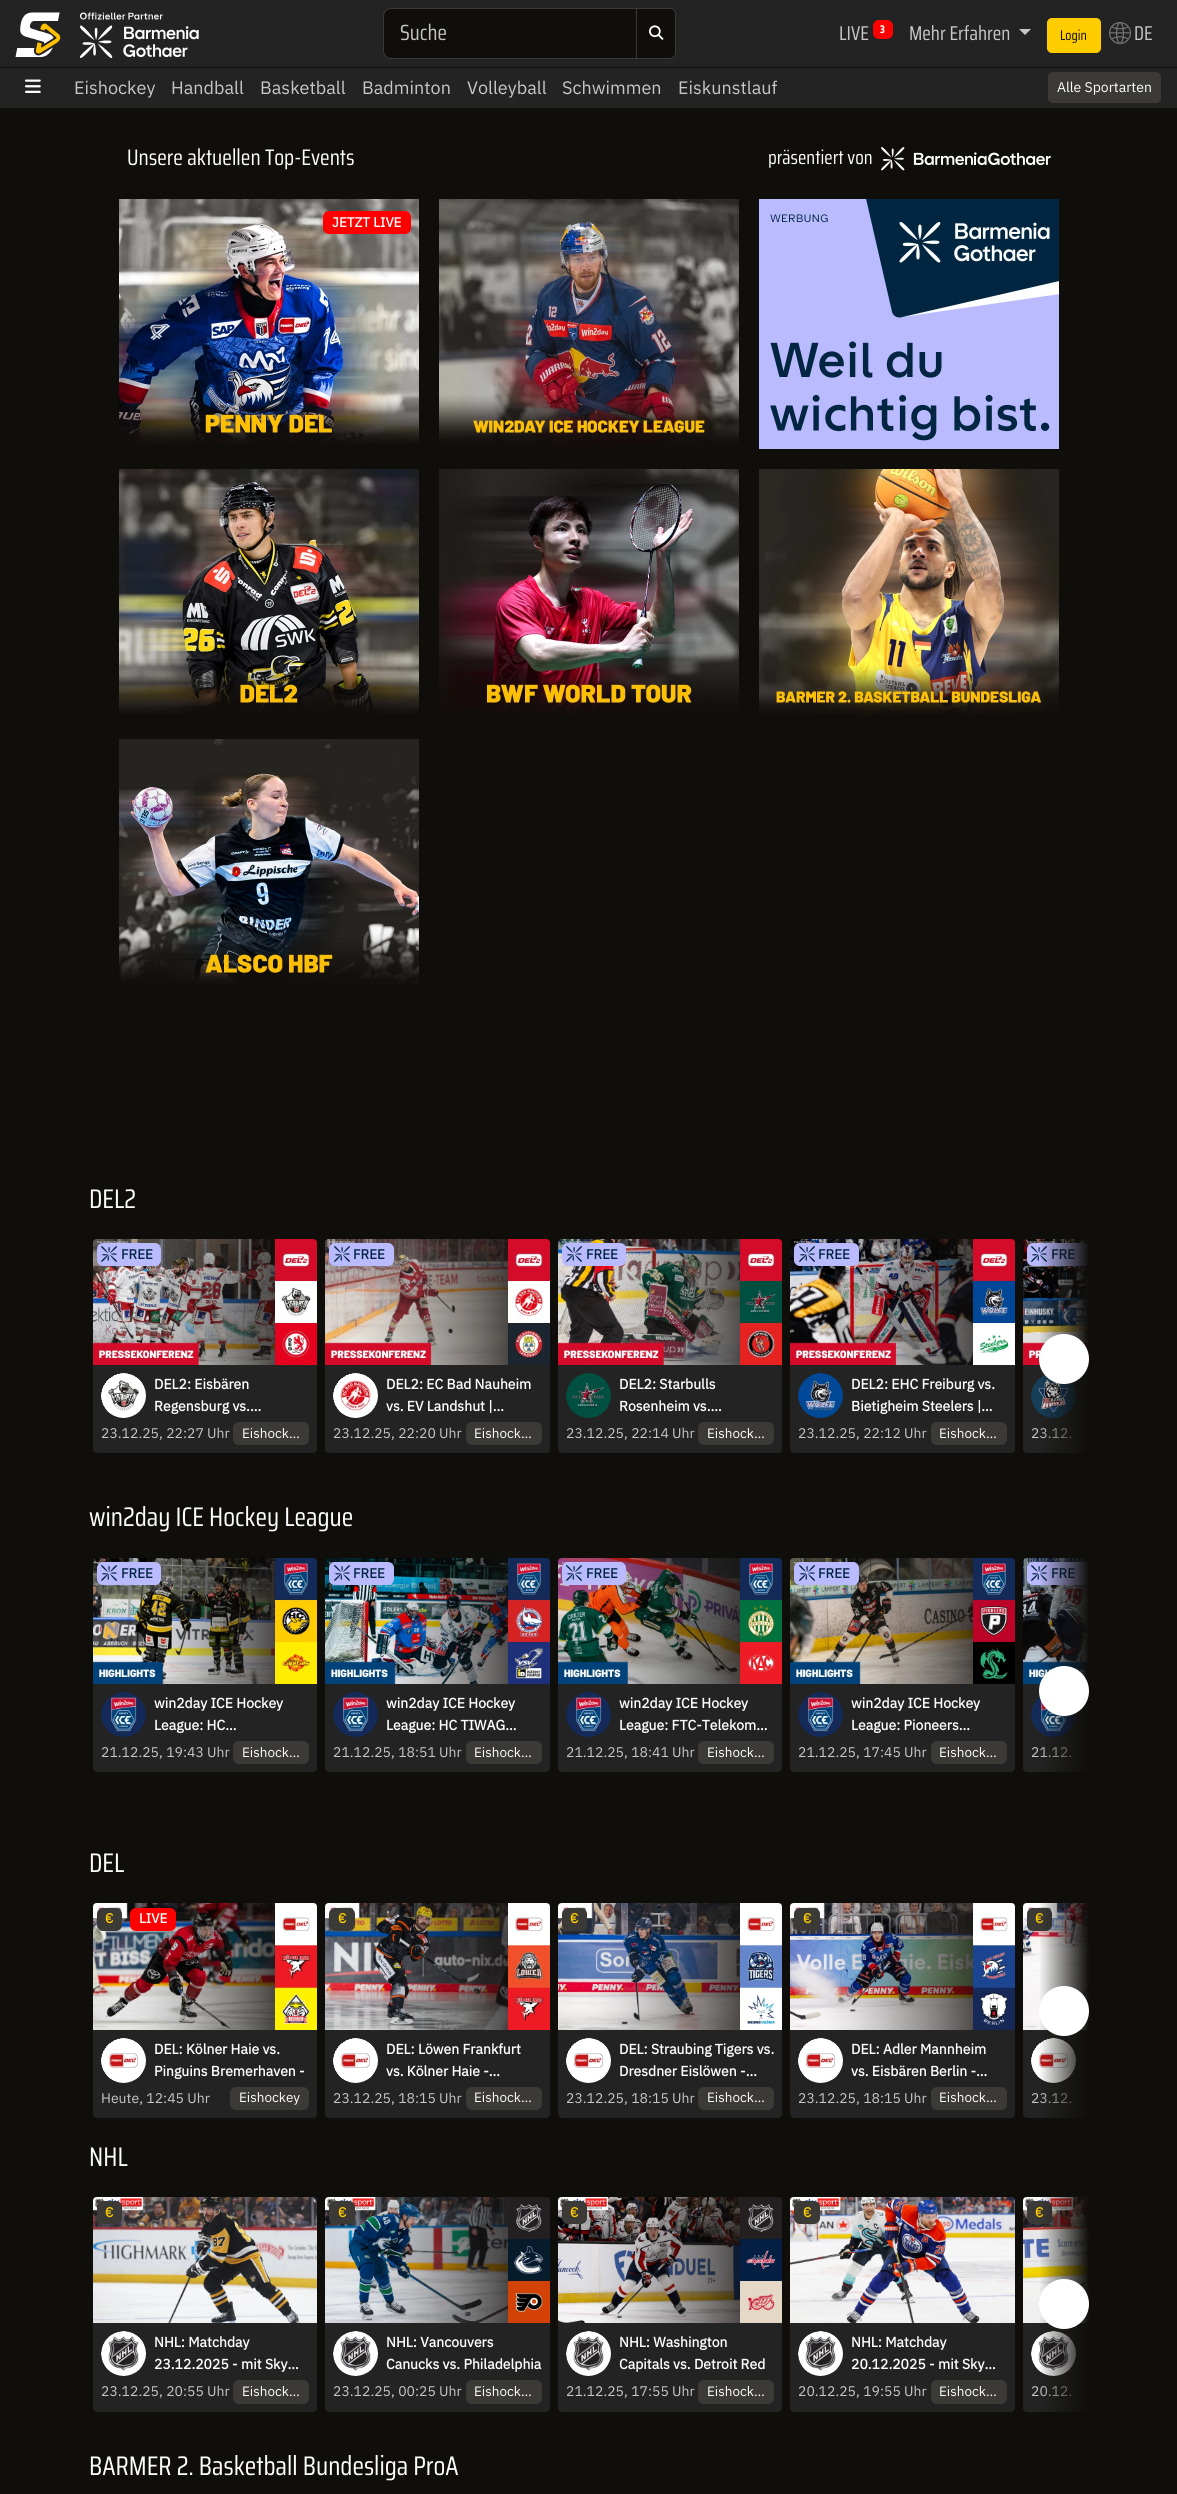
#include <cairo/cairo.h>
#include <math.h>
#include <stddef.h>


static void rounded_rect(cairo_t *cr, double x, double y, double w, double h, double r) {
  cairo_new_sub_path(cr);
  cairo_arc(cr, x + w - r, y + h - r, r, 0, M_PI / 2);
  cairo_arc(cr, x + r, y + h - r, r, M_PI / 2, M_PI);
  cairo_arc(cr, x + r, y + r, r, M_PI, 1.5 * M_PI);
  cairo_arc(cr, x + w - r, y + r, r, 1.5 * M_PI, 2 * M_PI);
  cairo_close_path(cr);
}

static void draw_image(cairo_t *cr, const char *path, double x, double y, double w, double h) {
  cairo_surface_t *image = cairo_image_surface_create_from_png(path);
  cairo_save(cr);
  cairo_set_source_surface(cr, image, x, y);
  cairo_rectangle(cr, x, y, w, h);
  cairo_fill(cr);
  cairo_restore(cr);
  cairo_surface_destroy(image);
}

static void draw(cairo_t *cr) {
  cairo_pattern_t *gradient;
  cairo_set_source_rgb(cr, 15 / 255.0, 14 / 255.0, 11 / 255.0);
  cairo_paint(cr);
  cairo_set_source_rgb(cr, 35 / 255.0, 35 / 255.0, 35 / 255.0);
  cairo_rectangle(cr, 0, 0, 1177, 67);
  cairo_fill(cr);
  draw_image(cr, "images/1.png", 15, 12, 184, 46);
  cairo_set_source_rgb(cr, 15 / 255.0, 14 / 255.0, 11 / 255.0);
  cairo_new_path(cr);
  cairo_move_to(cr, 636.5, 8.5);
  cairo_line_to(cr, 670, 8.5);
  cairo_curve_to(cr, 673, 8.5, 675.5, 11, 675.5, 14);
  cairo_line_to(cr, 675.5, 53);
  cairo_curve_to(cr, 675.5, 56, 673, 58.5, 670, 58.5);
  cairo_line_to(cr, 636.5, 58.5);
  cairo_close_path(cr);
  cairo_fill_preserve(cr);
  cairo_set_source_rgb(cr, 59 / 255.0, 58 / 255.0, 55 / 255.0);
  cairo_set_line_width(cr, 1);
  cairo_stroke(cr);
  cairo_set_source_rgb(cr, 15 / 255.0, 14 / 255.0, 11 / 255.0);
  cairo_new_path(cr);
  cairo_move_to(cr, 391, 8.5);
  cairo_line_to(cr, 636.5, 8.5);
  cairo_line_to(cr, 636.5, 58.5);
  cairo_line_to(cr, 391, 58.5);
  cairo_curve_to(cr, 387, 58.5, 383.5, 55, 383.5, 51);
  cairo_line_to(cr, 383.5, 16);
  cairo_curve_to(cr, 383.5, 12, 387, 8.5, 391, 8.5);
  cairo_close_path(cr);
  cairo_fill_preserve(cr);
  cairo_set_source_rgb(cr, 59 / 255.0, 58 / 255.0, 55 / 255.0);
  cairo_stroke(cr);
  draw_image(cr, "images/2.png", 649, 25, 15, 15);
  cairo_set_source_rgb(cr, 1, 0, 0);
  rounded_rect(cr, 873, 20, 20, 19, 6);
  cairo_fill(cr);
  cairo_set_source_rgb(cr, 200 / 255.0, 200 / 255.0, 200 / 255.0);
  cairo_new_path(cr);
  cairo_move_to(cr, 1019, 29);
  cairo_line_to(cr, 1031, 29);
  cairo_line_to(cr, 1025, 35);
  cairo_close_path(cr);
  cairo_fill(cr);
  cairo_set_source_rgb(cr, 1, 204 / 255.0, 0);
  rounded_rect(cr, 1047.5, 18.5, 53, 34, 4.5);
  cairo_fill_preserve(cr);
  cairo_stroke(cr);
  draw_image(cr, "images/3.png", 1109, 22, 22, 22);
  cairo_set_source_rgb(cr, 35 / 255.0, 35 / 255.0, 35 / 255.0);
  cairo_rectangle(cr, 0, 68, 1177, 40);
  cairo_fill(cr);
  draw_image(cr, "images/4.png", 25, 79, 16, 14);
  cairo_set_source_rgb(cr, 59 / 255.0, 58 / 255.0, 55 / 255.0);
  rounded_rect(cr, 1048.5, 72.5, 112, 30, 4.5);
  cairo_fill_preserve(cr);
  cairo_stroke(cr);
  draw_image(cr, "images/5.png", 881, 147, 170, 24);
  draw_image(cr, "images/6.png", 119, 199, 300, 245);
  cairo_set_source_rgb(cr, 1, 0, 0);
  rounded_rect(cr, 323, 211, 88, 23, 6);
  cairo_fill(cr);
  draw_image(cr, "images/7.png", 439, 199, 300, 248);
  draw_image(cr, "images/8.png", 759, 199, 300, 250);
  draw_image(cr, "images/9.png", 119, 469, 300, 245);
  draw_image(cr, "images/10.png", 439, 469, 300, 248);
  draw_image(cr, "images/11.png", 759, 469, 300, 246);
  draw_image(cr, "images/12.png", 119, 739, 300, 245);
  draw_image(cr, "images/13.png", 93, 1239, 224, 126);
  cairo_set_source_rgb(cr, 186 / 255.0, 186 / 255.0, 1);
  rounded_rect(cr, 97, 1243, 64, 23, 6);
  cairo_fill(cr);
  draw_image(cr, "images/14.png", 101, 1246, 16, 16);
  cairo_set_source_rgb(cr, 35 / 255.0, 35 / 255.0, 35 / 255.0);
  cairo_new_path(cr);
  cairo_move_to(cr, 93, 1365);
  cairo_line_to(cr, 317, 1365);
  cairo_line_to(cr, 317, 1449);
  cairo_curve_to(cr, 317, 1451, 315, 1453, 313, 1453);
  cairo_line_to(cr, 97, 1453);
  cairo_curve_to(cr, 95, 1453, 93, 1451, 93, 1449);
  cairo_close_path(cr);
  cairo_fill(cr);
  draw_image(cr, "images/15.png", 101, 1373, 45, 45);
  cairo_set_source_rgb(cr, 59 / 255.0, 58 / 255.0, 55 / 255.0);
  rounded_rect(cr, 233, 1422, 76, 23, 6);
  cairo_fill(cr);
  draw_image(cr, "images/16.png", 325, 1239, 225, 126);
  cairo_set_source_rgb(cr, 186 / 255.0, 186 / 255.0, 1);
  rounded_rect(cr, 329, 1243, 65, 23, 6);
  cairo_fill(cr);
  draw_image(cr, "images/14.png", 334, 1246, 16, 16);
  cairo_set_source_rgb(cr, 35 / 255.0, 35 / 255.0, 35 / 255.0);
  cairo_new_path(cr);
  cairo_move_to(cr, 325, 1365);
  cairo_line_to(cr, 550, 1365);
  cairo_line_to(cr, 550, 1449);
  cairo_curve_to(cr, 550, 1451, 548, 1453, 546, 1453);
  cairo_line_to(cr, 329, 1453);
  cairo_curve_to(cr, 327, 1453, 325, 1451, 325, 1449);
  cairo_close_path(cr);
  cairo_fill(cr);
  draw_image(cr, "images/17.png", 333, 1373, 45, 45);
  cairo_set_source_rgb(cr, 59 / 255.0, 58 / 255.0, 55 / 255.0);
  rounded_rect(cr, 466, 1422, 76, 23, 6);
  cairo_fill(cr);
  draw_image(cr, "images/18.png", 558, 1239, 224, 126);
  cairo_set_source_rgb(cr, 186 / 255.0, 186 / 255.0, 1);
  rounded_rect(cr, 562, 1243, 64, 23, 6);
  cairo_fill(cr);
  draw_image(cr, "images/14.png", 566, 1246, 16, 16);
  cairo_set_source_rgb(cr, 35 / 255.0, 35 / 255.0, 35 / 255.0);
  cairo_new_path(cr);
  cairo_move_to(cr, 558, 1365);
  cairo_line_to(cr, 782, 1365);
  cairo_line_to(cr, 782, 1449);
  cairo_curve_to(cr, 782, 1451, 780, 1453, 778, 1453);
  cairo_line_to(cr, 562, 1453);
  cairo_curve_to(cr, 560, 1453, 558, 1451, 558, 1449);
  cairo_close_path(cr);
  cairo_fill(cr);
  draw_image(cr, "images/19.png", 566, 1373, 45, 45);
  cairo_set_source_rgb(cr, 59 / 255.0, 58 / 255.0, 55 / 255.0);
  rounded_rect(cr, 698, 1422, 76, 23, 6);
  cairo_fill(cr);
  draw_image(cr, "images/20.png", 790, 1239, 225, 126);
  cairo_set_source_rgb(cr, 186 / 255.0, 186 / 255.0, 1);
  rounded_rect(cr, 794, 1243, 65, 23, 6);
  cairo_fill(cr);
  draw_image(cr, "images/14.png", 799, 1246, 16, 16);
  cairo_set_source_rgb(cr, 35 / 255.0, 35 / 255.0, 35 / 255.0);
  cairo_new_path(cr);
  cairo_move_to(cr, 790, 1365);
  cairo_line_to(cr, 1015, 1365);
  cairo_line_to(cr, 1015, 1449);
  cairo_curve_to(cr, 1015, 1451, 1013, 1453, 1011, 1453);
  cairo_line_to(cr, 794, 1453);
  cairo_curve_to(cr, 792, 1453, 790, 1451, 790, 1449);
  cairo_close_path(cr);
  cairo_fill(cr);
  draw_image(cr, "images/21.png", 798, 1373, 45, 45);
  cairo_set_source_rgb(cr, 59 / 255.0, 58 / 255.0, 55 / 255.0);
  rounded_rect(cr, 931, 1422, 76, 23, 6);
  cairo_fill(cr);
  draw_image(cr, "images/22.png", 1023, 1239, 66, 126);
  cairo_save(cr);
  cairo_rectangle(cr, 89, 1239, 1000, 239);
  cairo_clip(cr);
  cairo_set_source_rgb(cr, 186 / 255.0, 186 / 255.0, 1);
  rounded_rect(cr, 1027, 1243, 64, 23, 6);
  cairo_fill(cr);
  cairo_restore(cr);
  draw_image(cr, "images/14.png", 1031, 1246, 16, 16);
  cairo_set_source_rgb(cr, 35 / 255.0, 35 / 255.0, 35 / 255.0);
  cairo_new_path(cr);
  cairo_move_to(cr, 1023, 1365);
  cairo_line_to(cr, 1089, 1365);
  cairo_line_to(cr, 1089, 1453);
  cairo_line_to(cr, 1027, 1453);
  cairo_curve_to(cr, 1025, 1453, 1023, 1451, 1023, 1449);
  cairo_close_path(cr);
  cairo_fill(cr);
  draw_image(cr, "images/23.png", 1031, 1375, 45, 43);
  draw_image(cr, "images/24.png", 93, 1558, 224, 126);
  cairo_set_source_rgb(cr, 186 / 255.0, 186 / 255.0, 1);
  rounded_rect(cr, 97, 1562, 64, 23, 6);
  cairo_fill(cr);
  draw_image(cr, "images/14.png", 101, 1565, 16, 16);
  cairo_set_source_rgb(cr, 35 / 255.0, 35 / 255.0, 35 / 255.0);
  cairo_new_path(cr);
  cairo_move_to(cr, 93, 1684);
  cairo_line_to(cr, 317, 1684);
  cairo_line_to(cr, 317, 1768);
  cairo_curve_to(cr, 317, 1770, 315, 1772, 313, 1772);
  cairo_line_to(cr, 97, 1772);
  cairo_curve_to(cr, 95, 1772, 93, 1770, 93, 1768);
  cairo_close_path(cr);
  cairo_fill(cr);
  draw_image(cr, "images/25.png", 101, 1692, 45, 45);
  cairo_set_source_rgb(cr, 59 / 255.0, 58 / 255.0, 55 / 255.0);
  rounded_rect(cr, 233, 1741, 76, 23, 6);
  cairo_fill(cr);
  draw_image(cr, "images/26.png", 325, 1558, 225, 126);
  cairo_set_source_rgb(cr, 186 / 255.0, 186 / 255.0, 1);
  rounded_rect(cr, 329, 1562, 65, 23, 6);
  cairo_fill(cr);
  draw_image(cr, "images/14.png", 334, 1565, 16, 16);
  cairo_set_source_rgb(cr, 35 / 255.0, 35 / 255.0, 35 / 255.0);
  cairo_new_path(cr);
  cairo_move_to(cr, 325, 1684);
  cairo_line_to(cr, 550, 1684);
  cairo_line_to(cr, 550, 1768);
  cairo_curve_to(cr, 550, 1770, 548, 1772, 546, 1772);
  cairo_line_to(cr, 329, 1772);
  cairo_curve_to(cr, 327, 1772, 325, 1770, 325, 1768);
  cairo_close_path(cr);
  cairo_fill(cr);
  draw_image(cr, "images/25.png", 333, 1692, 45, 45);
  cairo_set_source_rgb(cr, 59 / 255.0, 58 / 255.0, 55 / 255.0);
  rounded_rect(cr, 466, 1741, 76, 23, 6);
  cairo_fill(cr);
  draw_image(cr, "images/27.png", 558, 1558, 224, 126);
  cairo_set_source_rgb(cr, 186 / 255.0, 186 / 255.0, 1);
  rounded_rect(cr, 562, 1562, 64, 23, 6);
  cairo_fill(cr);
  draw_image(cr, "images/14.png", 566, 1565, 16, 16);
  cairo_set_source_rgb(cr, 35 / 255.0, 35 / 255.0, 35 / 255.0);
  cairo_new_path(cr);
  cairo_move_to(cr, 558, 1684);
  cairo_line_to(cr, 782, 1684);
  cairo_line_to(cr, 782, 1768);
  cairo_curve_to(cr, 782, 1770, 780, 1772, 778, 1772);
  cairo_line_to(cr, 562, 1772);
  cairo_curve_to(cr, 560, 1772, 558, 1770, 558, 1768);
  cairo_close_path(cr);
  cairo_fill(cr);
  draw_image(cr, "images/25.png", 566, 1692, 45, 45);
  cairo_set_source_rgb(cr, 59 / 255.0, 58 / 255.0, 55 / 255.0);
  rounded_rect(cr, 698, 1741, 76, 23, 6);
  cairo_fill(cr);
  draw_image(cr, "images/28.png", 790, 1558, 225, 126);
  cairo_set_source_rgb(cr, 186 / 255.0, 186 / 255.0, 1);
  rounded_rect(cr, 794, 1562, 65, 23, 6);
  cairo_fill(cr);
  draw_image(cr, "images/14.png", 799, 1565, 16, 16);
  cairo_set_source_rgb(cr, 35 / 255.0, 35 / 255.0, 35 / 255.0);
  cairo_new_path(cr);
  cairo_move_to(cr, 790, 1684);
  cairo_line_to(cr, 1015, 1684);
  cairo_line_to(cr, 1015, 1768);
  cairo_curve_to(cr, 1015, 1770, 1013, 1772, 1011, 1772);
  cairo_line_to(cr, 794, 1772);
  cairo_curve_to(cr, 792, 1772, 790, 1770, 790, 1768);
  cairo_close_path(cr);
  cairo_fill(cr);
  draw_image(cr, "images/25.png", 798, 1692, 45, 45);
  cairo_set_source_rgb(cr, 59 / 255.0, 58 / 255.0, 55 / 255.0);
  rounded_rect(cr, 931, 1741, 76, 23, 6);
  cairo_fill(cr);
  draw_image(cr, "images/29.png", 1023, 1558, 66, 126);
  cairo_save(cr);
  cairo_rectangle(cr, 89, 1558, 1000, 266);
  cairo_clip(cr);
  cairo_set_source_rgb(cr, 186 / 255.0, 186 / 255.0, 1);
  rounded_rect(cr, 1027, 1562, 64, 23, 6);
  cairo_fill(cr);
  cairo_restore(cr);
  draw_image(cr, "images/14.png", 1031, 1565, 16, 16);
  cairo_set_source_rgb(cr, 35 / 255.0, 35 / 255.0, 35 / 255.0);
  cairo_new_path(cr);
  cairo_move_to(cr, 1023, 1684);
  cairo_line_to(cr, 1089, 1684);
  cairo_line_to(cr, 1089, 1772);
  cairo_line_to(cr, 1027, 1772);
  cairo_curve_to(cr, 1025, 1772, 1023, 1770, 1023, 1768);
  cairo_close_path(cr);
  cairo_fill(cr);
  draw_image(cr, "images/30.png", 1031, 1697, 45, 40);
  draw_image(cr, "images/31.png", 93, 1903, 224, 127);
  cairo_set_source_rgb(cr, 59 / 255.0, 58 / 255.0, 55 / 255.0);
  rounded_rect(cr, 97, 1908, 25, 23, 6);
  cairo_fill(cr);
  cairo_set_source_rgb(cr, 1, 0, 0);
  rounded_rect(cr, 130, 1908, 46, 23, 6);
  cairo_fill(cr);
  cairo_set_source_rgb(cr, 35 / 255.0, 35 / 255.0, 35 / 255.0);
  cairo_new_path(cr);
  cairo_move_to(cr, 93, 2030);
  cairo_line_to(cr, 317, 2030);
  cairo_line_to(cr, 317, 2114);
  cairo_curve_to(cr, 317, 2116, 315, 2118, 313, 2118);
  cairo_line_to(cr, 97, 2118);
  cairo_curve_to(cr, 95, 2118, 93, 2116, 93, 2114);
  cairo_close_path(cr);
  cairo_fill(cr);
  draw_image(cr, "images/32.png", 101, 2038, 45, 45);
  cairo_set_source_rgb(cr, 59 / 255.0, 58 / 255.0, 55 / 255.0);
  rounded_rect(cr, 230, 2087, 79, 23, 6);
  cairo_fill(cr);
  draw_image(cr, "images/33.png", 325, 1903, 225, 127);
  rounded_rect(cr, 329, 1908, 26, 23, 6);
  cairo_fill(cr);
  cairo_set_source_rgb(cr, 35 / 255.0, 35 / 255.0, 35 / 255.0);
  cairo_new_path(cr);
  cairo_move_to(cr, 325, 2030);
  cairo_line_to(cr, 550, 2030);
  cairo_line_to(cr, 550, 2114);
  cairo_curve_to(cr, 550, 2116, 548, 2118, 546, 2118);
  cairo_line_to(cr, 329, 2118);
  cairo_curve_to(cr, 327, 2118, 325, 2116, 325, 2114);
  cairo_close_path(cr);
  cairo_fill(cr);
  draw_image(cr, "images/32.png", 333, 2038, 45, 45);
  cairo_set_source_rgb(cr, 59 / 255.0, 58 / 255.0, 55 / 255.0);
  rounded_rect(cr, 466, 2087, 76, 23, 6);
  cairo_fill(cr);
  draw_image(cr, "images/34.png", 558, 1903, 224, 127);
  rounded_rect(cr, 562, 1908, 25, 23, 6);
  cairo_fill(cr);
  cairo_set_source_rgb(cr, 35 / 255.0, 35 / 255.0, 35 / 255.0);
  cairo_new_path(cr);
  cairo_move_to(cr, 558, 2030);
  cairo_line_to(cr, 782, 2030);
  cairo_line_to(cr, 782, 2114);
  cairo_curve_to(cr, 782, 2116, 780, 2118, 778, 2118);
  cairo_line_to(cr, 562, 2118);
  cairo_curve_to(cr, 560, 2118, 558, 2116, 558, 2114);
  cairo_close_path(cr);
  cairo_fill(cr);
  draw_image(cr, "images/32.png", 566, 2038, 45, 45);
  cairo_set_source_rgb(cr, 59 / 255.0, 58 / 255.0, 55 / 255.0);
  rounded_rect(cr, 698, 2087, 76, 23, 6);
  cairo_fill(cr);
  draw_image(cr, "images/35.png", 790, 1903, 225, 127);
  rounded_rect(cr, 794, 1908, 26, 23, 6);
  cairo_fill(cr);
  cairo_set_source_rgb(cr, 35 / 255.0, 35 / 255.0, 35 / 255.0);
  cairo_new_path(cr);
  cairo_move_to(cr, 790, 2030);
  cairo_line_to(cr, 1015, 2030);
  cairo_line_to(cr, 1015, 2114);
  cairo_curve_to(cr, 1015, 2116, 1013, 2118, 1011, 2118);
  cairo_line_to(cr, 794, 2118);
  cairo_curve_to(cr, 792, 2118, 790, 2116, 790, 2114);
  cairo_close_path(cr);
  cairo_fill(cr);
  draw_image(cr, "images/32.png", 798, 2038, 45, 45);
  cairo_set_source_rgb(cr, 59 / 255.0, 58 / 255.0, 55 / 255.0);
  rounded_rect(cr, 931, 2087, 76, 23, 6);
  cairo_fill(cr);
  draw_image(cr, "images/36.png", 1023, 1903, 66, 127);
  rounded_rect(cr, 1027, 1908, 25, 23, 6);
  cairo_fill(cr);
  cairo_set_source_rgb(cr, 35 / 255.0, 35 / 255.0, 35 / 255.0);
  cairo_new_path(cr);
  cairo_move_to(cr, 1023, 2030);
  cairo_line_to(cr, 1089, 2030);
  cairo_line_to(cr, 1089, 2118);
  cairo_line_to(cr, 1027, 2118);
  cairo_curve_to(cr, 1025, 2118, 1023, 2116, 1023, 2114);
  cairo_close_path(cr);
  cairo_fill(cr);
  draw_image(cr, "images/32.png", 1031, 2038, 45, 45);
  draw_image(cr, "images/37.png", 93, 2197, 224, 126);
  cairo_set_source_rgb(cr, 59 / 255.0, 58 / 255.0, 55 / 255.0);
  rounded_rect(cr, 97, 2201, 25, 23, 6);
  cairo_fill(cr);
  cairo_set_source_rgb(cr, 35 / 255.0, 35 / 255.0, 35 / 255.0);
  cairo_new_path(cr);
  cairo_move_to(cr, 93, 2323);
  cairo_line_to(cr, 317, 2323);
  cairo_line_to(cr, 317, 2408);
  cairo_curve_to(cr, 317, 2410, 315, 2412, 313, 2412);
  cairo_line_to(cr, 97, 2412);
  cairo_curve_to(cr, 95, 2412, 93, 2410, 93, 2408);
  cairo_close_path(cr);
  cairo_fill(cr);
  draw_image(cr, "images/38.png", 101, 2331, 45, 45);
  cairo_set_source_rgb(cr, 59 / 255.0, 58 / 255.0, 55 / 255.0);
  rounded_rect(cr, 233, 2380, 76, 24, 6);
  cairo_fill(cr);
  draw_image(cr, "images/39.png", 325, 2197, 225, 126);
  rounded_rect(cr, 329, 2201, 26, 23, 6);
  cairo_fill(cr);
  cairo_set_source_rgb(cr, 35 / 255.0, 35 / 255.0, 35 / 255.0);
  cairo_new_path(cr);
  cairo_move_to(cr, 325, 2323);
  cairo_line_to(cr, 550, 2323);
  cairo_line_to(cr, 550, 2408);
  cairo_curve_to(cr, 550, 2410, 548, 2412, 546, 2412);
  cairo_line_to(cr, 329, 2412);
  cairo_curve_to(cr, 327, 2412, 325, 2410, 325, 2408);
  cairo_close_path(cr);
  cairo_fill(cr);
  draw_image(cr, "images/38.png", 333, 2331, 45, 45);
  cairo_set_source_rgb(cr, 59 / 255.0, 58 / 255.0, 55 / 255.0);
  rounded_rect(cr, 466, 2380, 76, 24, 6);
  cairo_fill(cr);
  draw_image(cr, "images/40.png", 558, 2197, 224, 126);
  rounded_rect(cr, 562, 2201, 25, 23, 6);
  cairo_fill(cr);
  cairo_set_source_rgb(cr, 35 / 255.0, 35 / 255.0, 35 / 255.0);
  cairo_new_path(cr);
  cairo_move_to(cr, 558, 2323);
  cairo_line_to(cr, 782, 2323);
  cairo_line_to(cr, 782, 2408);
  cairo_curve_to(cr, 782, 2410, 780, 2412, 778, 2412);
  cairo_line_to(cr, 562, 2412);
  cairo_curve_to(cr, 560, 2412, 558, 2410, 558, 2408);
  cairo_close_path(cr);
  cairo_fill(cr);
  draw_image(cr, "images/38.png", 566, 2331, 45, 45);
  cairo_set_source_rgb(cr, 59 / 255.0, 58 / 255.0, 55 / 255.0);
  rounded_rect(cr, 698, 2380, 76, 24, 6);
  cairo_fill(cr);
  draw_image(cr, "images/41.png", 790, 2197, 225, 126);
  rounded_rect(cr, 794, 2201, 26, 23, 6);
  cairo_fill(cr);
  cairo_set_source_rgb(cr, 35 / 255.0, 35 / 255.0, 35 / 255.0);
  cairo_new_path(cr);
  cairo_move_to(cr, 790, 2323);
  cairo_line_to(cr, 1015, 2323);
  cairo_line_to(cr, 1015, 2408);
  cairo_curve_to(cr, 1015, 2410, 1013, 2412, 1011, 2412);
  cairo_line_to(cr, 794, 2412);
  cairo_curve_to(cr, 792, 2412, 790, 2410, 790, 2408);
  cairo_close_path(cr);
  cairo_fill(cr);
  draw_image(cr, "images/38.png", 798, 2331, 45, 45);
  cairo_set_source_rgb(cr, 59 / 255.0, 58 / 255.0, 55 / 255.0);
  rounded_rect(cr, 931, 2380, 76, 24, 6);
  cairo_fill(cr);
  draw_image(cr, "images/42.png", 1023, 2197, 66, 126);
  rounded_rect(cr, 1027, 2201, 25, 23, 6);
  cairo_fill(cr);
  cairo_set_source_rgb(cr, 35 / 255.0, 35 / 255.0, 35 / 255.0);
  cairo_new_path(cr);
  cairo_move_to(cr, 1023, 2323);
  cairo_line_to(cr, 1089, 2323);
  cairo_line_to(cr, 1089, 2412);
  cairo_line_to(cr, 1027, 2412);
  cairo_curve_to(cr, 1025, 2412, 1023, 2410, 1023, 2408);
  cairo_close_path(cr);
  cairo_fill(cr);
  draw_image(cr, "images/38.png", 1031, 2331, 45, 45);
  cairo_select_font_face(cr, "Saira Condensed", CAIRO_FONT_SLANT_NORMAL, CAIRO_FONT_WEIGHT_NORMAL);
  cairo_set_font_size(cr, 22);
  cairo_set_source_rgb(cr, 195 / 255.0, 195 / 255.0, 194 / 255.0);
  cairo_move_to(cr, 400, 40);
  cairo_show_text(cr, "Suche");
  cairo_set_font_size(cr, 20);
  cairo_set_source_rgb(cr, 200 / 255.0, 200 / 255.0, 200 / 255.0);
  cairo_move_to(cr, 839, 40);
  cairo_show_text(cr, "LIVE");
  cairo_select_font_face(cr, "Saira Condensed", CAIRO_FONT_SLANT_NORMAL, CAIRO_FONT_WEIGHT_BOLD);
  cairo_set_font_size(cr, 11);
  cairo_set_source_rgb(cr, 1, 1, 1);
  cairo_move_to(cr, 880, 33);
  cairo_show_text(cr, "3");
  cairo_select_font_face(cr, "Saira Condensed", CAIRO_FONT_SLANT_NORMAL, CAIRO_FONT_WEIGHT_NORMAL);
  cairo_set_font_size(cr, 20);
  cairo_set_source_rgb(cr, 200 / 255.0, 200 / 255.0, 200 / 255.0);
  cairo_move_to(cr, 909, 40);
  cairo_show_text(cr, "Mehr Erfahren");
  cairo_set_font_size(cr, 14);
  cairo_set_source_rgb(cr, 15 / 255.0, 14 / 255.0, 11 / 255.0);
  cairo_move_to(cr, 1060, 40);
  cairo_show_text(cr, "Login");
  cairo_set_font_size(cr, 20);
  cairo_set_source_rgb(cr, 200 / 255.0, 200 / 255.0, 200 / 255.0);
  cairo_move_to(cr, 1134, 40);
  cairo_show_text(cr, "DE");
  cairo_select_font_face(cr, "IBM Plex Sans", CAIRO_FONT_SLANT_NORMAL, CAIRO_FONT_WEIGHT_NORMAL);
  cairo_set_font_size(cr, 18);
  cairo_move_to(cr, 74, 94);
  cairo_show_text(cr, "Eishockey");
  cairo_move_to(cr, 171, 94);
  cairo_show_text(cr, "Handball");
  cairo_move_to(cr, 260, 94);
  cairo_show_text(cr, "Basketball");
  cairo_move_to(cr, 362, 94);
  cairo_show_text(cr, "Badminton");
  cairo_move_to(cr, 467, 94);
  cairo_show_text(cr, "Volleyball");
  cairo_move_to(cr, 562, 94);
  cairo_show_text(cr, "Schwimmen");
  cairo_move_to(cr, 678, 94);
  cairo_show_text(cr, "Eiskunstlauf");
  cairo_set_font_size(cr, 14);
  cairo_set_source_rgb(cr, 1, 1, 1);
  cairo_move_to(cr, 1057, 92);
  cairo_show_text(cr, "Alle Sportarten");
  cairo_select_font_face(cr, "Saira Condensed", CAIRO_FONT_SLANT_NORMAL, CAIRO_FONT_WEIGHT_NORMAL);
  cairo_set_font_size(cr, 22.5);
  cairo_move_to(cr, 127, 165);
  cairo_show_text(cr, "Unsere aktuellen Top-Events");
  cairo_set_font_size(cr, 19.5);
  cairo_move_to(cr, 768, 164);
  cairo_show_text(cr, "präsentiert von");
  cairo_select_font_face(cr, "IBM Plex Sans", CAIRO_FONT_SLANT_NORMAL, CAIRO_FONT_WEIGHT_BOLD);
  cairo_set_font_size(cr, 13.5);
  cairo_move_to(cr, 332, 227);
  cairo_show_text(cr, "JETZT LIVE");
  cairo_select_font_face(cr, "Saira Condensed", CAIRO_FONT_SLANT_NORMAL, CAIRO_FONT_WEIGHT_NORMAL);
  cairo_set_font_size(cr, 26.9);
  cairo_move_to(cr, 89, 1208);
  cairo_show_text(cr, "DEL2");
  cairo_select_font_face(cr, "IBM Plex Sans", CAIRO_FONT_SLANT_NORMAL, CAIRO_FONT_WEIGHT_BOLD);
  cairo_set_font_size(cr, 13.5);
  cairo_set_source_rgb(cr, 0, 38 / 255.0, 65 / 255.0);
  cairo_move_to(cr, 121, 1259);
  cairo_show_text(cr, "FREE");
  cairo_set_font_size(cr, 14);
  cairo_set_source_rgb(cr, 1, 1, 1);
  cairo_move_to(cr, 154, 1389);
  cairo_show_text(cr, "DEL2: Eisbären");
  cairo_move_to(cr, 154, 1411);
  cairo_show_text(cr, "Regensburg vs.…");
  cairo_select_font_face(cr, "IBM Plex Sans", CAIRO_FONT_SLANT_NORMAL, CAIRO_FONT_WEIGHT_NORMAL);
  cairo_set_source_rgb(cr, 200 / 255.0, 200 / 255.0, 200 / 255.0);
  cairo_move_to(cr, 101, 1438);
  cairo_show_text(cr, "23.12.25, 22:27 Uhr");
  cairo_set_font_size(cr, 13.5);
  cairo_set_source_rgb(cr, 1, 1, 1);
  cairo_move_to(cr, 242, 1438);
  cairo_show_text(cr, "Eishock…");
  cairo_select_font_face(cr, "IBM Plex Sans", CAIRO_FONT_SLANT_NORMAL, CAIRO_FONT_WEIGHT_BOLD);
  cairo_set_source_rgb(cr, 0, 38 / 255.0, 65 / 255.0);
  cairo_move_to(cr, 353, 1259);
  cairo_show_text(cr, "FREE");
  cairo_set_font_size(cr, 14);
  cairo_set_source_rgb(cr, 1, 1, 1);
  cairo_move_to(cr, 386, 1389);
  cairo_show_text(cr, "DEL2: EC Bad Nauheim");
  cairo_move_to(cr, 386, 1411);
  cairo_show_text(cr, "vs. EV Landshut |…");
  cairo_select_font_face(cr, "IBM Plex Sans", CAIRO_FONT_SLANT_NORMAL, CAIRO_FONT_WEIGHT_NORMAL);
  cairo_set_source_rgb(cr, 200 / 255.0, 200 / 255.0, 200 / 255.0);
  cairo_move_to(cr, 333, 1438);
  cairo_show_text(cr, "23.12.25, 22:20 Uhr");
  cairo_set_font_size(cr, 13.5);
  cairo_set_source_rgb(cr, 1, 1, 1);
  cairo_move_to(cr, 474, 1438);
  cairo_show_text(cr, "Eishock…");
  cairo_select_font_face(cr, "IBM Plex Sans", CAIRO_FONT_SLANT_NORMAL, CAIRO_FONT_WEIGHT_BOLD);
  cairo_set_source_rgb(cr, 0, 38 / 255.0, 65 / 255.0);
  cairo_move_to(cr, 586, 1259);
  cairo_show_text(cr, "FREE");
  cairo_set_font_size(cr, 14);
  cairo_set_source_rgb(cr, 1, 1, 1);
  cairo_move_to(cr, 619, 1389);
  cairo_show_text(cr, "DEL2: Starbulls");
  cairo_move_to(cr, 619, 1411);
  cairo_show_text(cr, "Rosenheim vs.…");
  cairo_select_font_face(cr, "IBM Plex Sans", CAIRO_FONT_SLANT_NORMAL, CAIRO_FONT_WEIGHT_NORMAL);
  cairo_set_source_rgb(cr, 200 / 255.0, 200 / 255.0, 200 / 255.0);
  cairo_move_to(cr, 566, 1438);
  cairo_show_text(cr, "23.12.25, 22:14 Uhr");
  cairo_set_font_size(cr, 13.5);
  cairo_set_source_rgb(cr, 1, 1, 1);
  cairo_move_to(cr, 707, 1438);
  cairo_show_text(cr, "Eishock…");
  cairo_select_font_face(cr, "IBM Plex Sans", CAIRO_FONT_SLANT_NORMAL, CAIRO_FONT_WEIGHT_BOLD);
  cairo_set_source_rgb(cr, 0, 38 / 255.0, 65 / 255.0);
  cairo_move_to(cr, 818, 1259);
  cairo_show_text(cr, "FREE");
  cairo_set_font_size(cr, 14);
  cairo_set_source_rgb(cr, 1, 1, 1);
  cairo_move_to(cr, 851, 1389);
  cairo_show_text(cr, "DEL2: EHC Freiburg vs.");
  cairo_move_to(cr, 851, 1411);
  cairo_show_text(cr, "Bietigheim Steelers |…");
  cairo_select_font_face(cr, "IBM Plex Sans", CAIRO_FONT_SLANT_NORMAL, CAIRO_FONT_WEIGHT_NORMAL);
  cairo_set_source_rgb(cr, 200 / 255.0, 200 / 255.0, 200 / 255.0);
  cairo_move_to(cr, 798, 1438);
  cairo_show_text(cr, "23.12.25, 22:12 Uhr");
  cairo_set_font_size(cr, 13.5);
  cairo_set_source_rgb(cr, 1, 1, 1);
  cairo_move_to(cr, 939, 1438);
  cairo_show_text(cr, "Eishock…");
  cairo_select_font_face(cr, "IBM Plex Sans", CAIRO_FONT_SLANT_NORMAL, CAIRO_FONT_WEIGHT_BOLD);
  cairo_set_source_rgb(cr, 0, 38 / 255.0, 65 / 255.0);
  cairo_move_to(cr, 1051, 1259);
  cairo_show_text(cr, "FRE");
  cairo_select_font_face(cr, "IBM Plex Sans", CAIRO_FONT_SLANT_NORMAL, CAIRO_FONT_WEIGHT_NORMAL);
  cairo_set_font_size(cr, 14);
  cairo_set_source_rgb(cr, 200 / 255.0, 200 / 255.0, 200 / 255.0);
  cairo_move_to(cr, 1031, 1438);
  cairo_show_text(cr, "23.12.");
  gradient = cairo_pattern_create_linear(1039, 1359, 1089, 1359);
  cairo_pattern_add_color_stop_rgba(gradient, 0, 15 / 255.0, 14 / 255.0, 11 / 255.0, 0);
  cairo_pattern_add_color_stop_rgba(gradient, 1, 15 / 255.0, 14 / 255.0, 11 / 255.0, 1);
  cairo_set_source(cr, gradient);
  cairo_pattern_destroy(gradient);
  cairo_rectangle(cr, 1040, 1239, 49, 214);
  cairo_fill(cr);
  cairo_set_source_rgb(cr, 1, 1, 1);
  cairo_arc(cr, 1064, 1359, 25, 0, 2 * M_PI);
  cairo_fill(cr);
  cairo_select_font_face(cr, "Saira Condensed", CAIRO_FONT_SLANT_NORMAL, CAIRO_FONT_WEIGHT_NORMAL);
  cairo_set_font_size(cr, 26.9);
  cairo_move_to(cr, 89, 1526);
  cairo_show_text(cr, "win2day ICE Hockey League");
  cairo_select_font_face(cr, "IBM Plex Sans", CAIRO_FONT_SLANT_NORMAL, CAIRO_FONT_WEIGHT_BOLD);
  cairo_set_font_size(cr, 13.5);
  cairo_set_source_rgb(cr, 0, 38 / 255.0, 65 / 255.0);
  cairo_move_to(cr, 121, 1578);
  cairo_show_text(cr, "FREE");
  cairo_set_font_size(cr, 14);
  cairo_set_source_rgb(cr, 1, 1, 1);
  cairo_move_to(cr, 154, 1708);
  cairo_show_text(cr, "win2day ICE Hockey");
  cairo_move_to(cr, 154, 1730);
  cairo_show_text(cr, "League: HC…");
  cairo_select_font_face(cr, "IBM Plex Sans", CAIRO_FONT_SLANT_NORMAL, CAIRO_FONT_WEIGHT_NORMAL);
  cairo_set_source_rgb(cr, 200 / 255.0, 200 / 255.0, 200 / 255.0);
  cairo_move_to(cr, 101, 1757);
  cairo_show_text(cr, "21.12.25, 19:43 Uhr");
  cairo_set_font_size(cr, 13.5);
  cairo_set_source_rgb(cr, 1, 1, 1);
  cairo_move_to(cr, 242, 1757);
  cairo_show_text(cr, "Eishock…");
  cairo_select_font_face(cr, "IBM Plex Sans", CAIRO_FONT_SLANT_NORMAL, CAIRO_FONT_WEIGHT_BOLD);
  cairo_set_source_rgb(cr, 0, 38 / 255.0, 65 / 255.0);
  cairo_move_to(cr, 353, 1578);
  cairo_show_text(cr, "FREE");
  cairo_set_font_size(cr, 14);
  cairo_set_source_rgb(cr, 1, 1, 1);
  cairo_move_to(cr, 386, 1708);
  cairo_show_text(cr, "win2day ICE Hockey");
  cairo_move_to(cr, 386, 1730);
  cairo_show_text(cr, "League: HC TIWAG…");
  cairo_select_font_face(cr, "IBM Plex Sans", CAIRO_FONT_SLANT_NORMAL, CAIRO_FONT_WEIGHT_NORMAL);
  cairo_set_source_rgb(cr, 200 / 255.0, 200 / 255.0, 200 / 255.0);
  cairo_move_to(cr, 333, 1757);
  cairo_show_text(cr, "21.12.25, 18:51 Uhr");
  cairo_set_font_size(cr, 13.5);
  cairo_set_source_rgb(cr, 1, 1, 1);
  cairo_move_to(cr, 474, 1757);
  cairo_show_text(cr, "Eishock…");
  cairo_select_font_face(cr, "IBM Plex Sans", CAIRO_FONT_SLANT_NORMAL, CAIRO_FONT_WEIGHT_BOLD);
  cairo_set_source_rgb(cr, 0, 38 / 255.0, 65 / 255.0);
  cairo_move_to(cr, 586, 1578);
  cairo_show_text(cr, "FREE");
  cairo_set_font_size(cr, 14);
  cairo_set_source_rgb(cr, 1, 1, 1);
  cairo_move_to(cr, 619, 1708);
  cairo_show_text(cr, "win2day ICE Hockey");
  cairo_move_to(cr, 619, 1730);
  cairo_show_text(cr, "League: FTC-Telekom…");
  cairo_select_font_face(cr, "IBM Plex Sans", CAIRO_FONT_SLANT_NORMAL, CAIRO_FONT_WEIGHT_NORMAL);
  cairo_set_source_rgb(cr, 200 / 255.0, 200 / 255.0, 200 / 255.0);
  cairo_move_to(cr, 566, 1757);
  cairo_show_text(cr, "21.12.25, 18:41 Uhr");
  cairo_set_font_size(cr, 13.5);
  cairo_set_source_rgb(cr, 1, 1, 1);
  cairo_move_to(cr, 707, 1757);
  cairo_show_text(cr, "Eishock…");
  cairo_select_font_face(cr, "IBM Plex Sans", CAIRO_FONT_SLANT_NORMAL, CAIRO_FONT_WEIGHT_BOLD);
  cairo_set_source_rgb(cr, 0, 38 / 255.0, 65 / 255.0);
  cairo_move_to(cr, 818, 1578);
  cairo_show_text(cr, "FREE");
  cairo_set_font_size(cr, 14);
  cairo_set_source_rgb(cr, 1, 1, 1);
  cairo_move_to(cr, 851, 1708);
  cairo_show_text(cr, "win2day ICE Hockey");
  cairo_move_to(cr, 851, 1730);
  cairo_show_text(cr, "League: Pioneers…");
  cairo_select_font_face(cr, "IBM Plex Sans", CAIRO_FONT_SLANT_NORMAL, CAIRO_FONT_WEIGHT_NORMAL);
  cairo_set_source_rgb(cr, 200 / 255.0, 200 / 255.0, 200 / 255.0);
  cairo_move_to(cr, 798, 1757);
  cairo_show_text(cr, "21.12.25, 17:45 Uhr");
  cairo_set_font_size(cr, 13.5);
  cairo_set_source_rgb(cr, 1, 1, 1);
  cairo_move_to(cr, 939, 1757);
  cairo_show_text(cr, "Eishock…");
  cairo_select_font_face(cr, "IBM Plex Sans", CAIRO_FONT_SLANT_NORMAL, CAIRO_FONT_WEIGHT_BOLD);
  cairo_set_source_rgb(cr, 0, 38 / 255.0, 65 / 255.0);
  cairo_move_to(cr, 1051, 1578);
  cairo_show_text(cr, "FRE");
  cairo_select_font_face(cr, "IBM Plex Sans", CAIRO_FONT_SLANT_NORMAL, CAIRO_FONT_WEIGHT_NORMAL);
  cairo_set_font_size(cr, 14);
  cairo_set_source_rgb(cr, 200 / 255.0, 200 / 255.0, 200 / 255.0);
  cairo_move_to(cr, 1031, 1757);
  cairo_show_text(cr, "21.12.");
  gradient = cairo_pattern_create_linear(1039, 1691, 1089, 1691);
  cairo_pattern_add_color_stop_rgba(gradient, 0, 15 / 255.0, 14 / 255.0, 11 / 255.0, 0);
  cairo_pattern_add_color_stop_rgba(gradient, 1, 15 / 255.0, 14 / 255.0, 11 / 255.0, 1);
  cairo_set_source(cr, gradient);
  cairo_pattern_destroy(gradient);
  cairo_rectangle(cr, 1040, 1558, 49, 214);
  cairo_fill(cr);
  cairo_set_source_rgb(cr, 1, 1, 1);
  cairo_arc(cr, 1064, 1691, 25, 0, 2 * M_PI);
  cairo_fill(cr);
  cairo_select_font_face(cr, "Saira Condensed", CAIRO_FONT_SLANT_NORMAL, CAIRO_FONT_WEIGHT_NORMAL);
  cairo_set_font_size(cr, 26.9);
  cairo_move_to(cr, 89, 1872);
  cairo_show_text(cr, "DEL");
  cairo_select_font_face(cr, "IBM Plex Sans", CAIRO_FONT_SLANT_NORMAL, CAIRO_FONT_WEIGHT_BOLD);
  cairo_set_font_size(cr, 13.5);
  cairo_set_source_rgb(cr, 1, 204 / 255.0, 0);
  cairo_move_to(cr, 105, 1923);
  cairo_show_text(cr, "€");
  cairo_set_source_rgb(cr, 1, 1, 1);
  cairo_move_to(cr, 139, 1923);
  cairo_show_text(cr, "LIVE");
  cairo_set_font_size(cr, 14);
  cairo_move_to(cr, 154, 2054);
  cairo_show_text(cr, "DEL: Kölner Haie vs.");
  cairo_move_to(cr, 154, 2076);
  cairo_show_text(cr, "Pinguins Bremerhaven -");
  cairo_select_font_face(cr, "IBM Plex Sans", CAIRO_FONT_SLANT_NORMAL, CAIRO_FONT_WEIGHT_NORMAL);
  cairo_set_source_rgb(cr, 200 / 255.0, 200 / 255.0, 200 / 255.0);
  cairo_move_to(cr, 101, 2103);
  cairo_show_text(cr, "Heute, 12:45 Uhr");
  cairo_set_font_size(cr, 13.5);
  cairo_set_source_rgb(cr, 1, 1, 1);
  cairo_move_to(cr, 239, 2102);
  cairo_show_text(cr, "Eishockey");
  cairo_select_font_face(cr, "IBM Plex Sans", CAIRO_FONT_SLANT_NORMAL, CAIRO_FONT_WEIGHT_BOLD);
  cairo_set_source_rgb(cr, 1, 204 / 255.0, 0);
  cairo_move_to(cr, 338, 1923);
  cairo_show_text(cr, "€");
  cairo_set_font_size(cr, 14);
  cairo_set_source_rgb(cr, 1, 1, 1);
  cairo_move_to(cr, 386, 2054);
  cairo_show_text(cr, "DEL: Löwen Frankfurt");
  cairo_move_to(cr, 386, 2076);
  cairo_show_text(cr, "vs. Kölner Haie -…");
  cairo_select_font_face(cr, "IBM Plex Sans", CAIRO_FONT_SLANT_NORMAL, CAIRO_FONT_WEIGHT_NORMAL);
  cairo_set_source_rgb(cr, 200 / 255.0, 200 / 255.0, 200 / 255.0);
  cairo_move_to(cr, 333, 2103);
  cairo_show_text(cr, "23.12.25, 18:15 Uhr");
  cairo_set_font_size(cr, 13.5);
  cairo_set_source_rgb(cr, 1, 1, 1);
  cairo_move_to(cr, 474, 2102);
  cairo_show_text(cr, "Eishock…");
  cairo_select_font_face(cr, "IBM Plex Sans", CAIRO_FONT_SLANT_NORMAL, CAIRO_FONT_WEIGHT_BOLD);
  cairo_set_source_rgb(cr, 1, 204 / 255.0, 0);
  cairo_move_to(cr, 570, 1923);
  cairo_show_text(cr, "€");
  cairo_set_font_size(cr, 14);
  cairo_set_source_rgb(cr, 1, 1, 1);
  cairo_move_to(cr, 619, 2054);
  cairo_show_text(cr, "DEL: Straubing Tigers vs.");
  cairo_move_to(cr, 619, 2076);
  cairo_show_text(cr, "Dresdner Eislöwen -…");
  cairo_select_font_face(cr, "IBM Plex Sans", CAIRO_FONT_SLANT_NORMAL, CAIRO_FONT_WEIGHT_NORMAL);
  cairo_set_source_rgb(cr, 200 / 255.0, 200 / 255.0, 200 / 255.0);
  cairo_move_to(cr, 566, 2103);
  cairo_show_text(cr, "23.12.25, 18:15 Uhr");
  cairo_set_font_size(cr, 13.5);
  cairo_set_source_rgb(cr, 1, 1, 1);
  cairo_move_to(cr, 707, 2102);
  cairo_show_text(cr, "Eishock…");
  cairo_select_font_face(cr, "IBM Plex Sans", CAIRO_FONT_SLANT_NORMAL, CAIRO_FONT_WEIGHT_BOLD);
  cairo_set_source_rgb(cr, 1, 204 / 255.0, 0);
  cairo_move_to(cr, 803, 1923);
  cairo_show_text(cr, "€");
  cairo_set_font_size(cr, 14);
  cairo_set_source_rgb(cr, 1, 1, 1);
  cairo_move_to(cr, 851, 2054);
  cairo_show_text(cr, "DEL: Adler Mannheim");
  cairo_move_to(cr, 851, 2076);
  cairo_show_text(cr, "vs. Eisbären Berlin -…");
  cairo_select_font_face(cr, "IBM Plex Sans", CAIRO_FONT_SLANT_NORMAL, CAIRO_FONT_WEIGHT_NORMAL);
  cairo_set_source_rgb(cr, 200 / 255.0, 200 / 255.0, 200 / 255.0);
  cairo_move_to(cr, 798, 2103);
  cairo_show_text(cr, "23.12.25, 18:15 Uhr");
  cairo_set_font_size(cr, 13.5);
  cairo_set_source_rgb(cr, 1, 1, 1);
  cairo_move_to(cr, 939, 2102);
  cairo_show_text(cr, "Eishock…");
  cairo_select_font_face(cr, "IBM Plex Sans", CAIRO_FONT_SLANT_NORMAL, CAIRO_FONT_WEIGHT_BOLD);
  cairo_set_source_rgb(cr, 1, 204 / 255.0, 0);
  cairo_move_to(cr, 1035, 1923);
  cairo_show_text(cr, "€");
  cairo_select_font_face(cr, "IBM Plex Sans", CAIRO_FONT_SLANT_NORMAL, CAIRO_FONT_WEIGHT_NORMAL);
  cairo_set_font_size(cr, 14);
  cairo_set_source_rgb(cr, 200 / 255.0, 200 / 255.0, 200 / 255.0);
  cairo_move_to(cr, 1031, 2103);
  cairo_show_text(cr, "23.12.");
  gradient = cairo_pattern_create_linear(1039, 2011, 1089, 2011);
  cairo_pattern_add_color_stop_rgba(gradient, 0, 15 / 255.0, 14 / 255.0, 11 / 255.0, 0);
  cairo_pattern_add_color_stop_rgba(gradient, 1, 15 / 255.0, 14 / 255.0, 11 / 255.0, 1);
  cairo_set_source(cr, gradient);
  cairo_pattern_destroy(gradient);
  cairo_rectangle(cr, 1040, 1903, 49, 215);
  cairo_fill(cr);
  cairo_set_source_rgb(cr, 1, 1, 1);
  cairo_arc(cr, 1064, 2011, 25, 0, 2 * M_PI);
  cairo_fill(cr);
  cairo_select_font_face(cr, "Saira Condensed", CAIRO_FONT_SLANT_NORMAL, CAIRO_FONT_WEIGHT_NORMAL);
  cairo_set_font_size(cr, 26.9);
  cairo_move_to(cr, 89, 2166);
  cairo_show_text(cr, "NHL");
  cairo_select_font_face(cr, "IBM Plex Sans", CAIRO_FONT_SLANT_NORMAL, CAIRO_FONT_WEIGHT_BOLD);
  cairo_set_font_size(cr, 13.5);
  cairo_set_source_rgb(cr, 1, 204 / 255.0, 0);
  cairo_move_to(cr, 105, 2217);
  cairo_show_text(cr, "€");
  cairo_set_font_size(cr, 14);
  cairo_set_source_rgb(cr, 1, 1, 1);
  cairo_move_to(cr, 154, 2347);
  cairo_show_text(cr, "NHL: Matchday");
  cairo_move_to(cr, 154, 2369);
  cairo_show_text(cr, "23.12.2025 - mit Sky…");
  cairo_select_font_face(cr, "IBM Plex Sans", CAIRO_FONT_SLANT_NORMAL, CAIRO_FONT_WEIGHT_NORMAL);
  cairo_set_source_rgb(cr, 200 / 255.0, 200 / 255.0, 200 / 255.0);
  cairo_move_to(cr, 101, 2396);
  cairo_show_text(cr, "23.12.25, 20:55 Uhr");
  cairo_set_font_size(cr, 13.5);
  cairo_set_source_rgb(cr, 1, 1, 1);
  cairo_move_to(cr, 242, 2396);
  cairo_show_text(cr, "Eishock…");
  cairo_select_font_face(cr, "IBM Plex Sans", CAIRO_FONT_SLANT_NORMAL, CAIRO_FONT_WEIGHT_BOLD);
  cairo_set_source_rgb(cr, 1, 204 / 255.0, 0);
  cairo_move_to(cr, 338, 2217);
  cairo_show_text(cr, "€");
  cairo_set_font_size(cr, 14);
  cairo_set_source_rgb(cr, 1, 1, 1);
  cairo_move_to(cr, 386, 2347);
  cairo_show_text(cr, "NHL: Vancouvers");
  cairo_move_to(cr, 386, 2369);
  cairo_show_text(cr, "Canucks vs. Philadelphia");
  cairo_select_font_face(cr, "IBM Plex Sans", CAIRO_FONT_SLANT_NORMAL, CAIRO_FONT_WEIGHT_NORMAL);
  cairo_set_source_rgb(cr, 200 / 255.0, 200 / 255.0, 200 / 255.0);
  cairo_move_to(cr, 333, 2396);
  cairo_show_text(cr, "23.12.25, 00:25 Uhr");
  cairo_set_font_size(cr, 13.5);
  cairo_set_source_rgb(cr, 1, 1, 1);
  cairo_move_to(cr, 474, 2396);
  cairo_show_text(cr, "Eishock…");
  cairo_select_font_face(cr, "IBM Plex Sans", CAIRO_FONT_SLANT_NORMAL, CAIRO_FONT_WEIGHT_BOLD);
  cairo_set_source_rgb(cr, 1, 204 / 255.0, 0);
  cairo_move_to(cr, 570, 2217);
  cairo_show_text(cr, "€");
  cairo_set_font_size(cr, 14);
  cairo_set_source_rgb(cr, 1, 1, 1);
  cairo_move_to(cr, 619, 2347);
  cairo_show_text(cr, "NHL: Washington");
  cairo_move_to(cr, 619, 2369);
  cairo_show_text(cr, "Capitals vs. Detroit Red");
  cairo_select_font_face(cr, "IBM Plex Sans", CAIRO_FONT_SLANT_NORMAL, CAIRO_FONT_WEIGHT_NORMAL);
  cairo_set_source_rgb(cr, 200 / 255.0, 200 / 255.0, 200 / 255.0);
  cairo_move_to(cr, 566, 2396);
  cairo_show_text(cr, "21.12.25, 17:55 Uhr");
  cairo_set_font_size(cr, 13.5);
  cairo_set_source_rgb(cr, 1, 1, 1);
  cairo_move_to(cr, 707, 2396);
  cairo_show_text(cr, "Eishock…");
  cairo_select_font_face(cr, "IBM Plex Sans", CAIRO_FONT_SLANT_NORMAL, CAIRO_FONT_WEIGHT_BOLD);
  cairo_set_source_rgb(cr, 1, 204 / 255.0, 0);
  cairo_move_to(cr, 803, 2217);
  cairo_show_text(cr, "€");
  cairo_set_font_size(cr, 14);
  cairo_set_source_rgb(cr, 1, 1, 1);
  cairo_move_to(cr, 851, 2347);
  cairo_show_text(cr, "NHL: Matchday");
  cairo_move_to(cr, 851, 2369);
  cairo_show_text(cr, "20.12.2025 - mit Sky…");
  cairo_select_font_face(cr, "IBM Plex Sans", CAIRO_FONT_SLANT_NORMAL, CAIRO_FONT_WEIGHT_NORMAL);
  cairo_set_source_rgb(cr, 200 / 255.0, 200 / 255.0, 200 / 255.0);
  cairo_move_to(cr, 798, 2396);
  cairo_show_text(cr, "20.12.25, 19:55 Uhr");
  cairo_set_font_size(cr, 13.5);
  cairo_set_source_rgb(cr, 1, 1, 1);
  cairo_move_to(cr, 939, 2396);
  cairo_show_text(cr, "Eishock…");
  cairo_select_font_face(cr, "IBM Plex Sans", CAIRO_FONT_SLANT_NORMAL, CAIRO_FONT_WEIGHT_BOLD);
  cairo_set_source_rgb(cr, 1, 204 / 255.0, 0);
  cairo_move_to(cr, 1035, 2217);
  cairo_show_text(cr, "€");
  cairo_select_font_face(cr, "IBM Plex Sans", CAIRO_FONT_SLANT_NORMAL, CAIRO_FONT_WEIGHT_NORMAL);
  cairo_set_font_size(cr, 14);
  cairo_set_source_rgb(cr, 200 / 255.0, 200 / 255.0, 200 / 255.0);
  cairo_move_to(cr, 1031, 2396);
  cairo_show_text(cr, "20.12.");
  gradient = cairo_pattern_create_linear(1039, 2305, 1089, 2305);
  cairo_pattern_add_color_stop_rgba(gradient, 0, 15 / 255.0, 14 / 255.0, 11 / 255.0, 0);
  cairo_pattern_add_color_stop_rgba(gradient, 1, 15 / 255.0, 14 / 255.0, 11 / 255.0, 1);
  cairo_set_source(cr, gradient);
  cairo_pattern_destroy(gradient);
  cairo_rectangle(cr, 1040, 2197, 49, 215);
  cairo_fill(cr);
  cairo_set_source_rgb(cr, 1, 1, 1);
  cairo_arc(cr, 1064, 2304, 25, 0, 2 * M_PI);
  cairo_fill(cr);
  cairo_select_font_face(cr, "Saira Condensed", CAIRO_FONT_SLANT_NORMAL, CAIRO_FONT_WEIGHT_NORMAL);
  cairo_set_font_size(cr, 26.9);
  cairo_move_to(cr, 89, 2475);
  cairo_show_text(cr, "BARMER 2. Basketball Bundesliga ProA");
}

int main(void) {
  cairo_surface_t *surface = cairo_image_surface_create(CAIRO_FORMAT_RGB24, 1177, 2494);
  cairo_t *cr = cairo_create(surface);
  cairo_font_options_t *options = cairo_font_options_create();
  cairo_font_options_set_hint_metrics(options, CAIRO_HINT_METRICS_OFF);
  cairo_font_options_set_hint_style(options, CAIRO_HINT_STYLE_NONE);
  cairo_set_font_options(cr, options);
  cairo_set_miter_limit(cr, 4);
  draw(cr);
  cairo_surface_write_to_png(surface, "out.png");
  cairo_font_options_destroy(options);
  cairo_destroy(cr);
  cairo_surface_destroy(surface);
  return 0;
}
